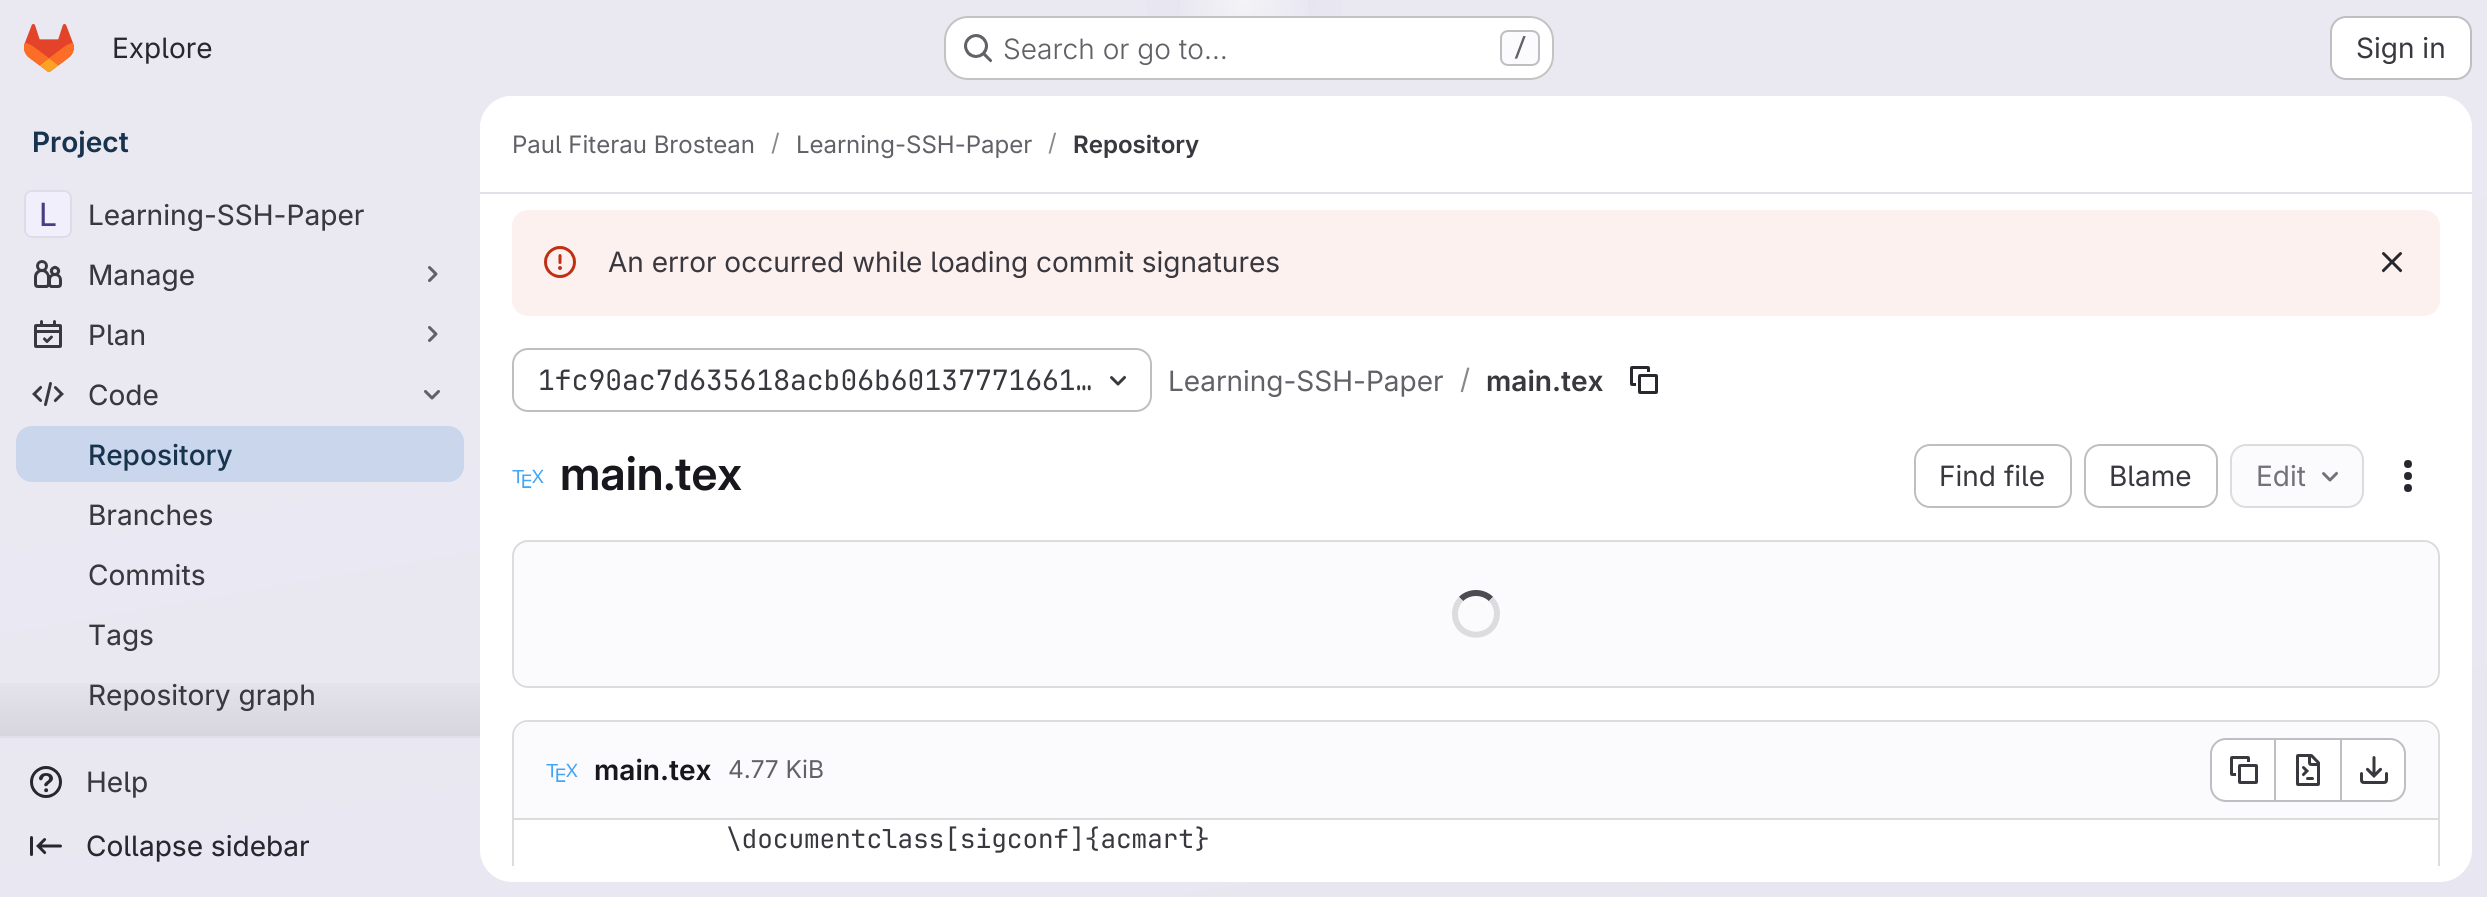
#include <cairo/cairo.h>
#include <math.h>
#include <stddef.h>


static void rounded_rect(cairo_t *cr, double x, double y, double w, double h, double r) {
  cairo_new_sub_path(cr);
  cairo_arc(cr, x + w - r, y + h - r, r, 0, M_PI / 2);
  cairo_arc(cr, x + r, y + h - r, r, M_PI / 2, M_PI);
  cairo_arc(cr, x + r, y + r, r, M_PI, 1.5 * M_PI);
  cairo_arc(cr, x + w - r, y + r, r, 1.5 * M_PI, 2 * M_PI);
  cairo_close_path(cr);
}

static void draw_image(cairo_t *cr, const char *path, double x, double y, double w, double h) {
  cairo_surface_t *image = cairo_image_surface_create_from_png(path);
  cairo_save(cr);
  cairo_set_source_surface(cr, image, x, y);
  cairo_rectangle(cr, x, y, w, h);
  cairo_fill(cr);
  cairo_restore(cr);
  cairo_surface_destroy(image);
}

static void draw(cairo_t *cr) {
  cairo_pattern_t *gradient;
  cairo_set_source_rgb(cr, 1, 1, 1);
  cairo_paint(cr);
  gradient = cairo_pattern_create_linear(1358, 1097, 1130, -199);
  cairo_pattern_add_color_stop_rgba(gradient, 0, 232 / 255.0, 230 / 255.0, 240 / 255.0, 1);
  cairo_pattern_add_color_stop_rgba(gradient, 0.7, 234 / 255.0, 233 / 255.0, 242 / 255.0, 1);
  cairo_set_source(cr, gradient);
  cairo_pattern_destroy(gradient);
  cairo_rectangle(cr, 0, 0, 2487, 897);
  cairo_fill(cr);
  gradient = cairo_pattern_create_radial(0, 0, 0, 0, 0, 1);
  cairo_pattern_set_matrix(gradient, &(cairo_matrix_t){1.0 / 1244, 0, 0, 1.0 / 898, -1.0 * 1244 / 1244, -1.0 * 0 / 898});
  cairo_pattern_add_color_stop_rgba(gradient, 0, 228 / 255.0, 226 / 255.0, 237 / 255.0, 1);
  cairo_pattern_add_color_stop_rgba(gradient, 0.11, 228 / 255.0, 226 / 255.0, 237 / 255.0, 0);
  cairo_set_source(cr, gradient);
  cairo_pattern_destroy(gradient);
  cairo_rectangle(cr, 1147, 0, 194, 71);
  cairo_fill(cr);
  gradient = cairo_pattern_create_radial(0, 0, 0, 0, 0, 1);
  cairo_pattern_set_matrix(gradient, &(cairo_matrix_t){1.0 / 1244, 0, 0, 1.0 / 898, -1.0 * 1244 / 1244, -1.0 * 0 / 898});
  cairo_pattern_add_color_stop_rgba(gradient, 0, 228 / 255.0, 226 / 255.0, 236 / 255.0, 1);
  cairo_pattern_add_color_stop_rgba(gradient, 0.08, 228 / 255.0, 226 / 255.0, 236 / 255.0, 0);
  cairo_set_source(cr, gradient);
  cairo_pattern_destroy(gradient);
  cairo_rectangle(cr, 1219, 2, 50, 14);
  cairo_fill(cr);
  gradient = cairo_pattern_create_radial(1244, 0, 0, 1244, 0, 1534);
  cairo_pattern_add_color_stop_rgba(gradient, 0, 1, 1, 1, 0.6);
  cairo_pattern_add_color_stop_rgba(gradient, 0.05, 1, 1, 1, 0);
  cairo_set_source(cr, gradient);
  cairo_pattern_destroy(gradient);
  cairo_rectangle(cr, 1180, 0, 128, 16);
  cairo_fill(cr);
  draw_image(cr, "images/1.png", 24, 24, 50, 48);
  cairo_set_source_rgb(cr, 1, 1, 1);
  rounded_rect(cr, 944, 16, 610, 64, 24);
  cairo_fill(cr);
  rounded_rect(cr, 945, 17, 608, 62, 23);
  cairo_set_source_rgba(cr, 5 / 255.0, 5 / 255.0, 6 / 255.0, 0.24);
  cairo_stroke(cr);
  draw_image(cr, "images/2.png", 964, 34, 29, 29);
  cairo_set_source_rgb(cr, 251 / 255.0, 250 / 255.0, 253 / 255.0);
  rounded_rect(cr, 1501, 31, 38, 34, 7);
  cairo_fill_preserve(cr);
  cairo_set_source_rgb(cr, 191 / 255.0, 191 / 255.0, 195 / 255.0);
  cairo_stroke(cr);
  cairo_set_source_rgb(cr, 1, 1, 1);
  rounded_rect(cr, 2331, 17, 140, 62, 15);
  cairo_fill_preserve(cr);
  cairo_set_source_rgb(cr, 191 / 255.0, 191 / 255.0, 195 / 255.0);
  cairo_stroke(cr);
  cairo_set_source_rgb(cr, 225 / 255.0, 223 / 255.0, 236 / 255.0);
  cairo_rectangle(cr, 0, 736, 480, 2);
  cairo_fill(cr);
  cairo_set_source_rgb(cr, 1, 1, 1);
  rounded_rect(cr, 24, 190, 48, 48, 8);
  cairo_fill(cr);
  cairo_set_source_rgba(cr, 203 / 255.0, 187 / 255.0, 242 / 255.0, 0.24);
  rounded_rect(cr, 24, 190, 48, 48, 8);
  cairo_fill(cr);
  rounded_rect(cr, 25, 191, 46, 46, 7);
  cairo_set_source_rgba(cr, 5 / 255.0, 5 / 255.0, 6 / 255.0, 0.08);
  cairo_stroke(cr);
  draw_image(cr, "images/3.png", 34, 260, 28, 28);
  cairo_new_path(cr);
  cairo_move_to(cr, 429.5, 267.5);
  cairo_line_to(cr, 436, 274);
  cairo_line_to(cr, 429.5, 280.5);
  cairo_set_source_rgb(cr, 98 / 255.0, 97 / 255.0, 104 / 255.0);
  cairo_set_line_width(cr, 3);
  cairo_set_line_cap(cr, CAIRO_LINE_CAP_ROUND);
  cairo_set_line_join(cr, CAIRO_LINE_JOIN_ROUND);
  cairo_stroke(cr);
  draw_image(cr, "images/4.png", 34, 320, 28, 28);
  cairo_new_path(cr);
  cairo_move_to(cr, 429.5, 327.5);
  cairo_line_to(cr, 436, 334);
  cairo_line_to(cr, 429.5, 340.5);
  cairo_stroke(cr);
  draw_image(cr, "images/5.png", 32, 382, 32, 24);
  cairo_new_path(cr);
  cairo_move_to(cr, 438.5, 391.5);
  cairo_line_to(cr, 432, 398);
  cairo_line_to(cr, 425.5, 391.5);
  cairo_stroke(cr);
  cairo_set_source_rgb(cr, 201 / 255.0, 214 / 255.0, 235 / 255.0);
  rounded_rect(cr, 16, 426, 448, 56, 16);
  cairo_fill(cr);
  gradient = cairo_pattern_create_linear(240, 664, 240, 736);
  cairo_pattern_add_color_stop_rgba(gradient, 0, 5 / 255.0, 5 / 255.0, 6 / 255.0, 0);
  cairo_pattern_add_color_stop_rgba(gradient, 1, 5 / 255.0, 5 / 255.0, 6 / 255.0, 0.08);
  cairo_set_source(cr, gradient);
  cairo_pattern_destroy(gradient);
  cairo_rectangle(cr, 0, 683, 480, 53);
  cairo_fill(cr);
  draw_image(cr, "images/6.png", 30, 766, 32, 32);
  draw_image(cr, "images/7.png", 30, 836, 32, 20);
  cairo_set_source_rgb(cr, 1, 1, 1);
  rounded_rect(cr, 480, 96, 1992, 786, 32);
  cairo_fill(cr);
  cairo_new_path(cr);
  cairo_move_to(cr, 512, 96);
  cairo_line_to(cr, 2440, 96);
  cairo_curve_to(cr, 2457.5, 96, 2472, 110.5, 2472, 128);
  cairo_line_to(cr, 2472, 194);
  cairo_line_to(cr, 480, 194);
  cairo_line_to(cr, 480, 128);
  cairo_curve_to(cr, 480, 110.5, 494.5, 96, 512, 96);
  cairo_close_path(cr);
  cairo_fill(cr);
  cairo_set_source_rgb(cr, 225 / 255.0, 223 / 255.0, 236 / 255.0);
  cairo_rectangle(cr, 480, 192, 1992, 2);
  cairo_fill(cr);
  cairo_set_source_rgb(cr, 252 / 255.0, 241 / 255.0, 239 / 255.0);
  rounded_rect(cr, 512, 210, 1928, 106, 16);
  cairo_fill(cr);
  draw_image(cr, "images/8.png", 544, 246, 32, 32);
  draw_image(cr, "images/9.png", 2381, 252, 22, 21);
  rounded_rect(cr, 513, 349, 638, 62, 15);
  cairo_set_source_rgb(cr, 191 / 255.0, 191 / 255.0, 195 / 255.0);
  cairo_set_line_width(cr, 2);
  cairo_set_line_cap(cr, CAIRO_LINE_CAP_BUTT);
  cairo_set_line_join(cr, CAIRO_LINE_JOIN_MITER);
  cairo_stroke(cr);
  draw_image(cr, "images/10.png", 1110, 375, 17, 11);
  draw_image(cr, "images/11.png", 1630, 366, 28, 28);
  draw_image(cr, "images/12.png", 512, 469, 32, 19);
  rounded_rect(cr, 1915, 445, 156, 62, 15);
  cairo_stroke(cr);
  rounded_rect(cr, 2085, 445, 132, 62, 15);
  cairo_stroke(cr);
  cairo_set_source_rgb(cr, 251 / 255.0, 250 / 255.0, 253 / 255.0);
  rounded_rect(cr, 2231, 445, 132, 62, 15);
  cairo_fill_preserve(cr);
  cairo_set_source_rgb(cr, 220 / 255.0, 220 / 255.0, 222 / 255.0);
  cairo_stroke(cr);
  draw_image(cr, "images/13.png", 2322, 471, 16, 11);
  draw_image(cr, "images/14.png", 2404, 460, 8, 32);
  cairo_set_source_rgb(cr, 251 / 255.0, 250 / 255.0, 253 / 255.0);
  rounded_rect(cr, 513, 541, 1926, 146, 15);
  cairo_fill_preserve(cr);
  cairo_set_source_rgb(cr, 220 / 255.0, 220 / 255.0, 222 / 255.0);
  cairo_stroke(cr);
  cairo_new_path(cr);
  cairo_move_to(cr, 1461, 599);
  cairo_curve_to(cr, 1469, 591, 1483, 591, 1491, 599);
  cairo_set_source_rgb(cr, 76 / 255.0, 75 / 255.0, 81 / 255.0);
  cairo_set_line_width(cr, 6);
  cairo_stroke(cr);
  cairo_new_path(cr);
  cairo_move_to(cr, 1491, 599);
  cairo_curve_to(cr, 1496, 604, 1498, 611.5, 1496.5, 618);
  cairo_curve_to(cr, 1491.5, 642.5, 1455, 639, 1455, 614);
  cairo_curve_to(cr, 1455, 608.5, 1457, 603, 1461, 599);
  cairo_set_source_rgb(cr, 220 / 255.0, 220 / 255.0, 222 / 255.0);
  cairo_stroke(cr);
  cairo_save(cr);
  cairo_rectangle(cr, 480, 194, 1992, 672);
  cairo_clip(cr);
  cairo_new_path(cr);
  cairo_move_to(cr, 528, 720);
  cairo_curve_to(cr, 519, 720, 512, 727, 512, 736);
  cairo_line_to(cr, 512, 882);
  cairo_line_to(cr, 514, 882);
  cairo_line_to(cr, 514, 736);
  cairo_curve_to(cr, 514, 728, 520, 722, 528, 722);
  cairo_line_to(cr, 2424, 722);
  cairo_curve_to(cr, 2432, 722, 2438, 728, 2438, 736);
  cairo_line_to(cr, 2438, 882);
  cairo_line_to(cr, 2440, 882);
  cairo_line_to(cr, 2440, 736);
  cairo_curve_to(cr, 2440, 727, 2433, 720, 2424, 720);
  cairo_close_path(cr);
  cairo_fill(cr);
  cairo_restore(cr);
  cairo_set_source_rgb(cr, 251 / 255.0, 250 / 255.0, 253 / 255.0);
  cairo_new_path(cr);
  cairo_move_to(cr, 528, 722);
  cairo_line_to(cr, 2424, 722);
  cairo_curve_to(cr, 2431.5, 722, 2438, 728.5, 2438, 736);
  cairo_line_to(cr, 2438, 820);
  cairo_line_to(cr, 514, 820);
  cairo_line_to(cr, 514, 736);
  cairo_curve_to(cr, 514, 728.5, 520.5, 722, 528, 722);
  cairo_close_path(cr);
  cairo_fill(cr);
  cairo_set_source_rgb(cr, 220 / 255.0, 220 / 255.0, 222 / 255.0);
  cairo_rectangle(cr, 514, 818, 1924, 2);
  cairo_fill(cr);
  draw_image(cr, "images/15.png", 546, 763, 32, 19);
  cairo_set_source_rgb(cr, 1, 1, 1);
  cairo_new_path(cr);
  cairo_move_to(cr, 2226, 740);
  cairo_line_to(cr, 2274, 740);
  cairo_line_to(cr, 2274, 800);
  cairo_line_to(cr, 2226, 800);
  cairo_curve_to(cr, 2218.5, 800, 2212, 793.5, 2212, 786);
  cairo_line_to(cr, 2212, 754);
  cairo_curve_to(cr, 2212, 746.5, 2218.5, 740, 2226, 740);
  cairo_close_path(cr);
  cairo_fill(cr);
  cairo_set_source_rgb(cr, 191 / 255.0, 191 / 255.0, 195 / 255.0);
  cairo_set_fill_rule(cr, CAIRO_FILL_RULE_EVEN_ODD);
  cairo_new_path(cr);
  cairo_move_to(cr, 2226, 738);
  cairo_line_to(cr, 2274, 738);
  cairo_line_to(cr, 2274, 802);
  cairo_line_to(cr, 2226, 802);
  cairo_curve_to(cr, 2217, 802, 2210, 795, 2210, 786);
  cairo_line_to(cr, 2210, 754);
  cairo_curve_to(cr, 2210, 745, 2217, 738, 2226, 738);
  cairo_close_path(cr);
  cairo_move_to(cr, 2226, 740);
  cairo_line_to(cr, 2274, 740);
  cairo_line_to(cr, 2274, 800);
  cairo_line_to(cr, 2226, 800);
  cairo_curve_to(cr, 2218, 800, 2212, 794, 2212, 786);
  cairo_line_to(cr, 2212, 754);
  cairo_curve_to(cr, 2212, 746, 2218, 740, 2226, 740);
  cairo_close_path(cr);
  cairo_fill(cr);
  draw_image(cr, "images/16.png", 2230, 756, 28, 28);
  cairo_set_source_rgb(cr, 1, 1, 1);
  cairo_rectangle(cr, 2276, 740, 64, 60);
  cairo_fill(cr);
  cairo_set_source_rgb(cr, 191 / 255.0, 191 / 255.0, 195 / 255.0);
  cairo_rectangle(cr, 2276, 738, 64, 2);
  cairo_fill(cr);
  cairo_rectangle(cr, 2276, 800, 64, 2);
  cairo_fill(cr);
  cairo_rectangle(cr, 2274, 738, 2, 64);
  cairo_fill(cr);
  draw_image(cr, "images/17.png", 2296, 754, 24, 32);
  cairo_set_source_rgb(cr, 1, 1, 1);
  cairo_new_path(cr);
  cairo_move_to(cr, 2342, 740);
  cairo_line_to(cr, 2390, 740);
  cairo_curve_to(cr, 2397.5, 740, 2404, 746.5, 2404, 754);
  cairo_line_to(cr, 2404, 786);
  cairo_curve_to(cr, 2404, 793.5, 2397.5, 800, 2390, 800);
  cairo_line_to(cr, 2342, 800);
  cairo_close_path(cr);
  cairo_fill(cr);
  cairo_set_source_rgb(cr, 191 / 255.0, 191 / 255.0, 195 / 255.0);
  cairo_new_path(cr);
  cairo_move_to(cr, 2342, 738);
  cairo_line_to(cr, 2390, 738);
  cairo_curve_to(cr, 2399, 738, 2406, 745, 2406, 754);
  cairo_line_to(cr, 2406, 786);
  cairo_curve_to(cr, 2406, 795, 2399, 802, 2390, 802);
  cairo_line_to(cr, 2342, 802);
  cairo_close_path(cr);
  cairo_move_to(cr, 2342, 740);
  cairo_line_to(cr, 2390, 740);
  cairo_curve_to(cr, 2398, 740, 2404, 746, 2404, 754);
  cairo_line_to(cr, 2404, 786);
  cairo_curve_to(cr, 2404, 794, 2398, 800, 2390, 800);
  cairo_line_to(cr, 2342, 800);
  cairo_close_path(cr);
  cairo_fill(cr);
  cairo_rectangle(cr, 2340, 738, 2, 64);
  cairo_fill(cr);
  draw_image(cr, "images/18.png", 2360, 756, 28, 28);
  cairo_select_font_face(cr, "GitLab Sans", CAIRO_FONT_SLANT_NORMAL, CAIRO_FONT_WEIGHT_NORMAL);
  cairo_set_font_size(cr, 28);
  cairo_set_source_rgb(cr, 40 / 255.0, 39 / 255.0, 45 / 255.0);
  cairo_move_to(cr, 112, 58);
  cairo_show_text(cr, "Explore");
  cairo_select_font_face(cr, "GitLab Sans Light", CAIRO_FONT_SLANT_NORMAL, CAIRO_FONT_WEIGHT_NORMAL);
  cairo_set_source_rgb(cr, 98 / 255.0, 97 / 255.0, 104 / 255.0);
  cairo_move_to(cr, 1003, 59);
  cairo_show_text(cr, "Search or go to…");
  cairo_select_font_face(cr, "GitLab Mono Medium", CAIRO_FONT_SLANT_NORMAL, CAIRO_FONT_WEIGHT_NORMAL);
  cairo_set_font_size(cr, 24);
  cairo_move_to(cr, 1513, 56);
  cairo_show_text(cr, "/");
  cairo_select_font_face(cr, "GitLab Sans", CAIRO_FONT_SLANT_NORMAL, CAIRO_FONT_WEIGHT_NORMAL);
  cairo_set_font_size(cr, 28);
  cairo_set_source_rgb(cr, 58 / 255.0, 56 / 255.0, 63 / 255.0);
  cairo_move_to(cr, 2356, 58);
  cairo_show_text(cr, "Sign in");
  cairo_select_font_face(cr, "GitLab Sans SemiBold", CAIRO_FONT_SLANT_NORMAL, CAIRO_FONT_WEIGHT_NORMAL);
  cairo_set_source_rgb(cr, 24 / 255.0, 51 / 255.0, 78 / 255.0);
  cairo_move_to(cr, 32, 152);
  cairo_show_text(cr, "Project");
  cairo_select_font_face(cr, "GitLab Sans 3", CAIRO_FONT_SLANT_NORMAL, CAIRO_FONT_WEIGHT_NORMAL);
  cairo_set_font_size(cr, 32);
  cairo_set_source_rgb(cr, 73 / 255.0, 60 / 255.0, 131 / 255.0);
  cairo_move_to(cr, 39, 226);
  cairo_show_text(cr, "L");
  cairo_select_font_face(cr, "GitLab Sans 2", CAIRO_FONT_SLANT_NORMAL, CAIRO_FONT_WEIGHT_NORMAL);
  cairo_set_font_size(cr, 28);
  cairo_set_source_rgb(cr, 58 / 255.0, 56 / 255.0, 63 / 255.0);
  cairo_move_to(cr, 88, 225);
  cairo_show_text(cr, "Learning-SSH-Paper");
  cairo_move_to(cr, 88, 285);
  cairo_show_text(cr, "Manage");
  cairo_move_to(cr, 88, 345);
  cairo_show_text(cr, "Plan");
  cairo_move_to(cr, 88, 405);
  cairo_show_text(cr, "Code");
  cairo_select_font_face(cr, "GitLab Sans Medium", CAIRO_FONT_SLANT_NORMAL, CAIRO_FONT_WEIGHT_NORMAL);
  cairo_set_source_rgb(cr, 24 / 255.0, 51 / 255.0, 78 / 255.0);
  cairo_move_to(cr, 88, 465);
  cairo_show_text(cr, "Repository");
  cairo_select_font_face(cr, "GitLab Sans 2", CAIRO_FONT_SLANT_NORMAL, CAIRO_FONT_WEIGHT_NORMAL);
  cairo_set_source_rgb(cr, 58 / 255.0, 56 / 255.0, 63 / 255.0);
  cairo_move_to(cr, 88, 525);
  cairo_show_text(cr, "Branches");
  cairo_move_to(cr, 88, 585);
  cairo_show_text(cr, "Commits");
  cairo_move_to(cr, 88, 645);
  cairo_show_text(cr, "Tags");
  cairo_move_to(cr, 88, 705);
  cairo_show_text(cr, "Repository graph");
  cairo_move_to(cr, 86, 792);
  cairo_show_text(cr, "Help");
  cairo_set_source_rgb(cr, 40 / 255.0, 39 / 255.0, 45 / 255.0);
  cairo_move_to(cr, 86, 856);
  cairo_show_text(cr, "Collapse sidebar");
  cairo_select_font_face(cr, "GitLab Sans", CAIRO_FONT_SLANT_NORMAL, CAIRO_FONT_WEIGHT_NORMAL);
  cairo_set_font_size(cr, 24);
  cairo_set_source_rgb(cr, 98 / 255.0, 97 / 255.0, 104 / 255.0);
  cairo_move_to(cr, 512, 153);
  cairo_show_text(cr, "Paul Fiterau Brostean");
  cairo_set_source_rgb(cr, 137 / 255.0, 136 / 255.0, 141 / 255.0);
  cairo_move_to(cr, 771, 151);
  cairo_show_text(cr, "/");
  cairo_set_source_rgb(cr, 98 / 255.0, 97 / 255.0, 104 / 255.0);
  cairo_move_to(cr, 796, 153);
  cairo_show_text(cr, "Learning-SSH-Paper");
  cairo_set_source_rgb(cr, 137 / 255.0, 136 / 255.0, 141 / 255.0);
  cairo_move_to(cr, 1048, 151);
  cairo_show_text(cr, "/");
  cairo_select_font_face(cr, "GitLab Sans SemiBold", CAIRO_FONT_SLANT_NORMAL, CAIRO_FONT_WEIGHT_NORMAL);
  cairo_set_source_rgb(cr, 58 / 255.0, 56 / 255.0, 63 / 255.0);
  cairo_move_to(cr, 1073, 153);
  cairo_show_text(cr, "Repository");
  cairo_select_font_face(cr, "GitLab Sans", CAIRO_FONT_SLANT_NORMAL, CAIRO_FONT_WEIGHT_NORMAL);
  cairo_set_font_size(cr, 28);
  cairo_move_to(cr, 608, 272);
  cairo_show_text(cr, "An error occurred while loading commit signatures");
  cairo_select_font_face(cr, "GitLab Mono", CAIRO_FONT_SLANT_NORMAL, CAIRO_FONT_WEIGHT_NORMAL);
  cairo_move_to(cr, 538, 390);
  cairo_show_text(cr, "1fc90ac7d635618acb06b60137771661…");
  cairo_select_font_face(cr, "GitLab Sans", CAIRO_FONT_SLANT_NORMAL, CAIRO_FONT_WEIGHT_NORMAL);
  cairo_set_source_rgb(cr, 98 / 255.0, 97 / 255.0, 104 / 255.0);
  cairo_move_to(cr, 1168, 391);
  cairo_show_text(cr, "Learning-SSH-Paper");
  cairo_set_source_rgb(cr, 137 / 255.0, 136 / 255.0, 141 / 255.0);
  cairo_move_to(cr, 1460, 389);
  cairo_show_text(cr, "/");
  cairo_select_font_face(cr, "GitLab Sans SemiBold", CAIRO_FONT_SLANT_NORMAL, CAIRO_FONT_WEIGHT_NORMAL);
  cairo_set_source_rgb(cr, 58 / 255.0, 56 / 255.0, 63 / 255.0);
  cairo_move_to(cr, 1486, 391);
  cairo_show_text(cr, "main.tex");
  cairo_select_font_face(cr, "GitLab Sans 2 SemiBold", CAIRO_FONT_SLANT_NORMAL, CAIRO_FONT_WEIGHT_NORMAL);
  cairo_set_font_size(cr, 46);
  cairo_set_source_rgb(cr, 24 / 255.0, 23 / 255.0, 29 / 255.0);
  cairo_move_to(cr, 560, 490);
  cairo_show_text(cr, "main.tex");
  cairo_select_font_face(cr, "GitLab Sans", CAIRO_FONT_SLANT_NORMAL, CAIRO_FONT_WEIGHT_NORMAL);
  cairo_set_font_size(cr, 28);
  cairo_set_source_rgb(cr, 58 / 255.0, 56 / 255.0, 63 / 255.0);
  cairo_move_to(cr, 1939, 486);
  cairo_show_text(cr, "Find file");
  cairo_move_to(cr, 2109, 486);
  cairo_show_text(cr, "Blame");
  cairo_set_source_rgb(cr, 115 / 255.0, 114 / 255.0, 120 / 255.0);
  cairo_move_to(cr, 2256, 486);
  cairo_show_text(cr, "Edit");
  cairo_select_font_face(cr, "GitLab Sans SemiBold", CAIRO_FONT_SLANT_NORMAL, CAIRO_FONT_WEIGHT_NORMAL);
  cairo_set_source_rgb(cr, 24 / 255.0, 23 / 255.0, 29 / 255.0);
  cairo_move_to(cr, 594, 780);
  cairo_show_text(cr, "main.tex");
  cairo_select_font_face(cr, "GitLab Sans", CAIRO_FONT_SLANT_NORMAL, CAIRO_FONT_WEIGHT_NORMAL);
  cairo_set_font_size(cr, 24.5);
  cairo_set_source_rgb(cr, 98 / 255.0, 97 / 255.0, 104 / 255.0);
  cairo_move_to(cr, 728, 778);
  cairo_show_text(cr, "4.77 KiB");
  cairo_select_font_face(cr, "GitLab Mono", CAIRO_FONT_SLANT_NORMAL, CAIRO_FONT_WEIGHT_NORMAL);
  cairo_set_font_size(cr, 26);
  cairo_set_source_rgb(cr, 58 / 255.0, 56 / 255.0, 63 / 255.0);
  cairo_move_to(cr, 726, 848);
  cairo_show_text(cr, "\\documentclass[sigconf]{acmart}");
}

int main(void) {
  cairo_surface_t *surface = cairo_image_surface_create(CAIRO_FORMAT_RGB24, 2487, 897);
  cairo_t *cr = cairo_create(surface);
  cairo_font_options_t *options = cairo_font_options_create();
  cairo_font_options_set_hint_metrics(options, CAIRO_HINT_METRICS_OFF);
  cairo_font_options_set_hint_style(options, CAIRO_HINT_STYLE_NONE);
  cairo_set_font_options(cr, options);
  cairo_set_miter_limit(cr, 4);
  draw(cr);
  cairo_surface_write_to_png(surface, "out.png");
  cairo_font_options_destroy(options);
  cairo_destroy(cr);
  cairo_surface_destroy(surface);
  return 0;
}
